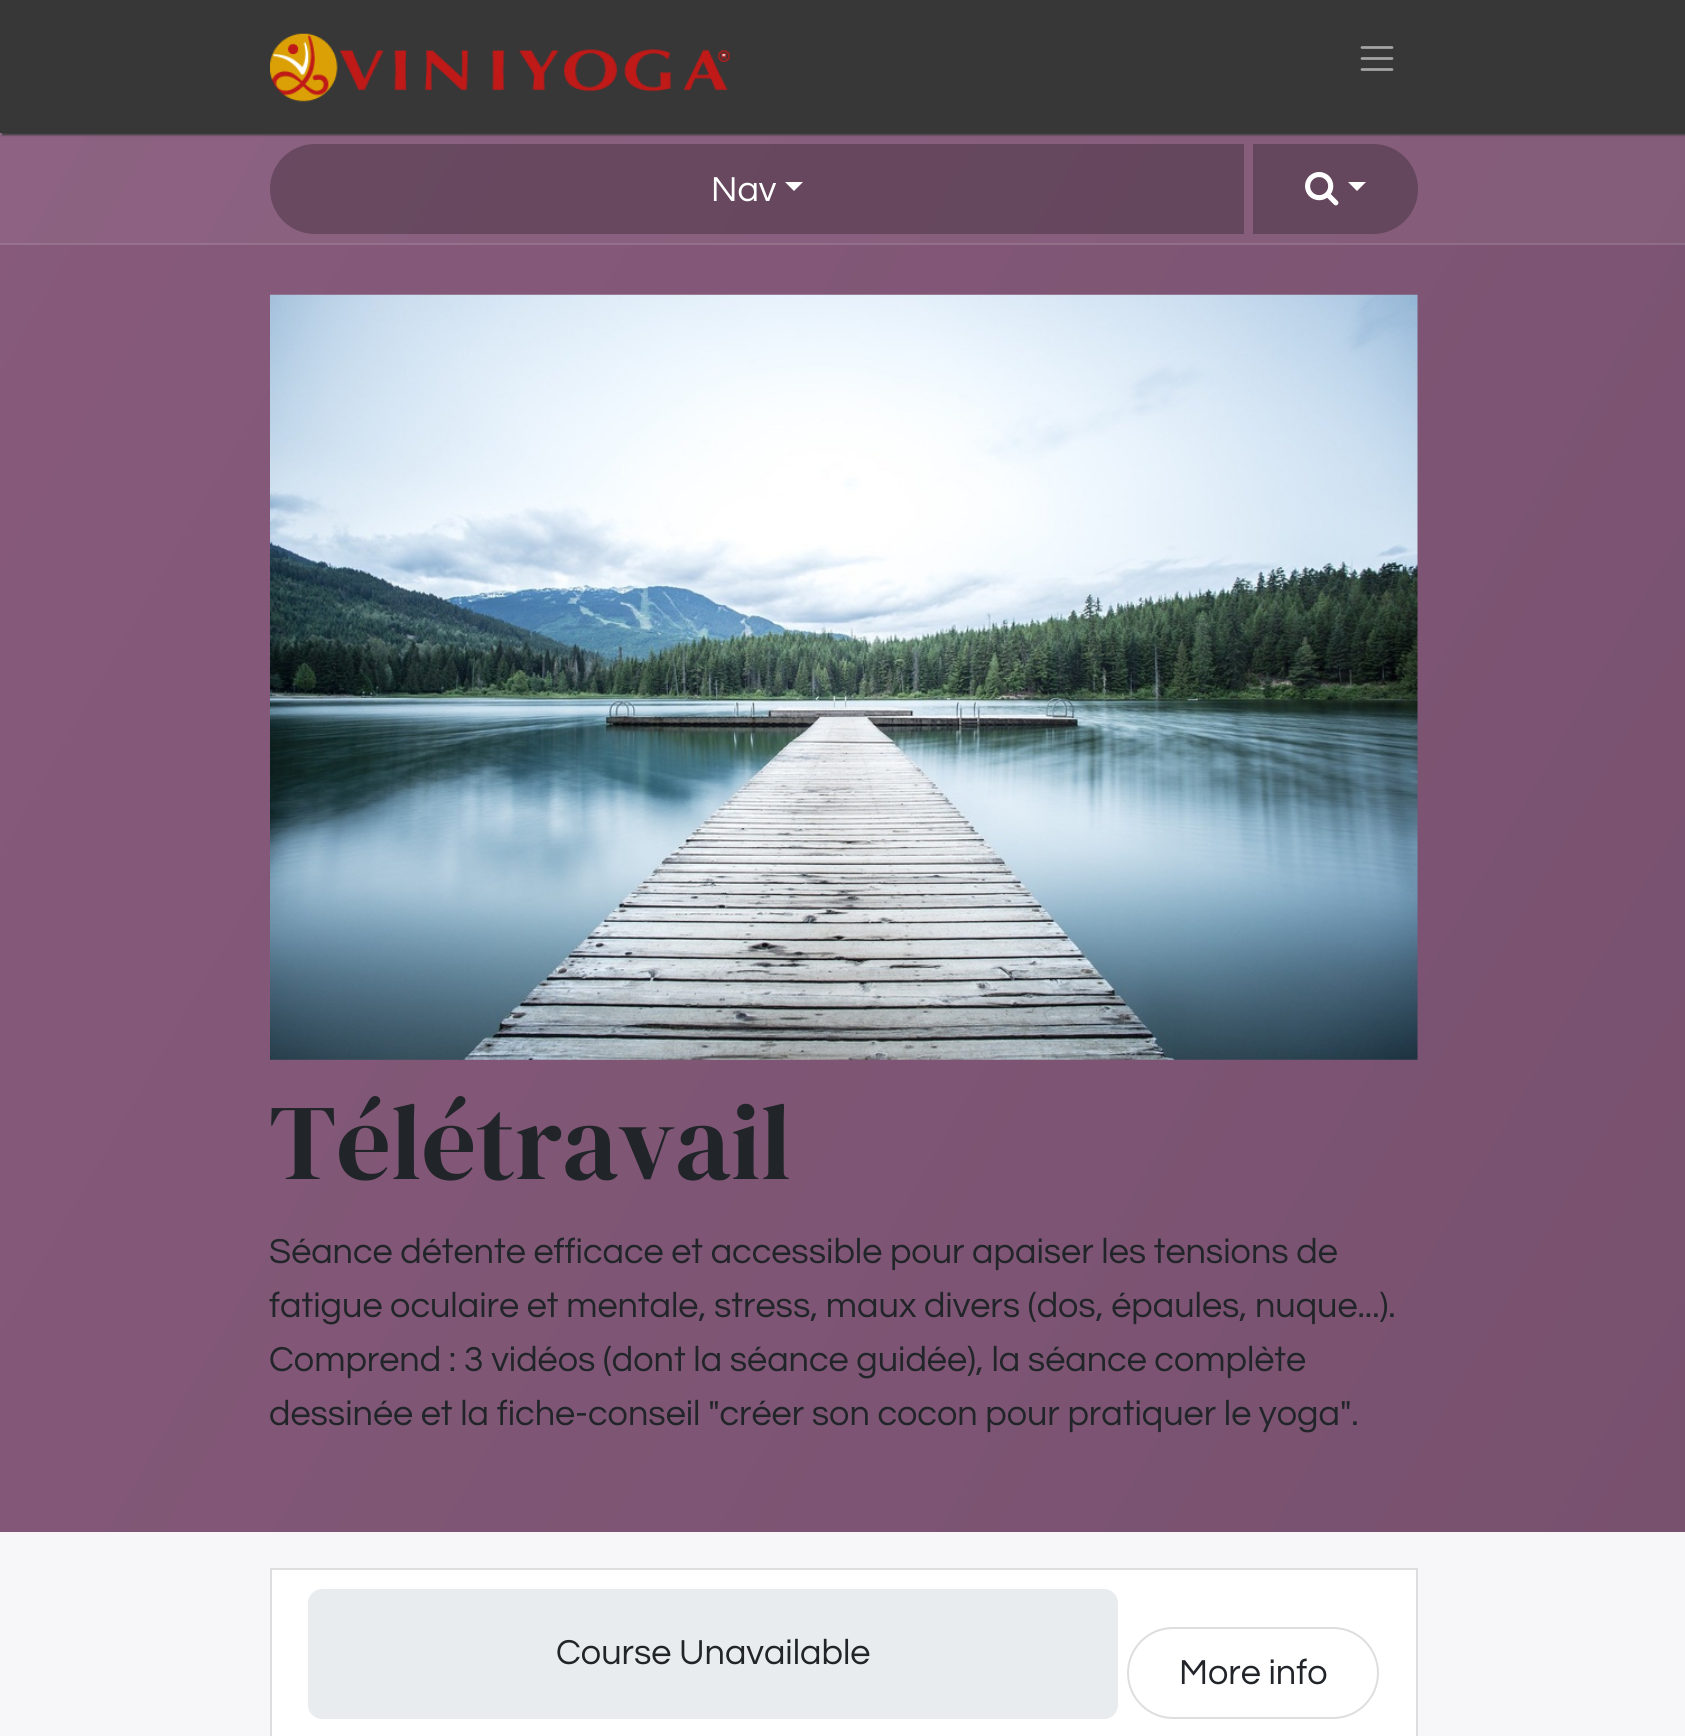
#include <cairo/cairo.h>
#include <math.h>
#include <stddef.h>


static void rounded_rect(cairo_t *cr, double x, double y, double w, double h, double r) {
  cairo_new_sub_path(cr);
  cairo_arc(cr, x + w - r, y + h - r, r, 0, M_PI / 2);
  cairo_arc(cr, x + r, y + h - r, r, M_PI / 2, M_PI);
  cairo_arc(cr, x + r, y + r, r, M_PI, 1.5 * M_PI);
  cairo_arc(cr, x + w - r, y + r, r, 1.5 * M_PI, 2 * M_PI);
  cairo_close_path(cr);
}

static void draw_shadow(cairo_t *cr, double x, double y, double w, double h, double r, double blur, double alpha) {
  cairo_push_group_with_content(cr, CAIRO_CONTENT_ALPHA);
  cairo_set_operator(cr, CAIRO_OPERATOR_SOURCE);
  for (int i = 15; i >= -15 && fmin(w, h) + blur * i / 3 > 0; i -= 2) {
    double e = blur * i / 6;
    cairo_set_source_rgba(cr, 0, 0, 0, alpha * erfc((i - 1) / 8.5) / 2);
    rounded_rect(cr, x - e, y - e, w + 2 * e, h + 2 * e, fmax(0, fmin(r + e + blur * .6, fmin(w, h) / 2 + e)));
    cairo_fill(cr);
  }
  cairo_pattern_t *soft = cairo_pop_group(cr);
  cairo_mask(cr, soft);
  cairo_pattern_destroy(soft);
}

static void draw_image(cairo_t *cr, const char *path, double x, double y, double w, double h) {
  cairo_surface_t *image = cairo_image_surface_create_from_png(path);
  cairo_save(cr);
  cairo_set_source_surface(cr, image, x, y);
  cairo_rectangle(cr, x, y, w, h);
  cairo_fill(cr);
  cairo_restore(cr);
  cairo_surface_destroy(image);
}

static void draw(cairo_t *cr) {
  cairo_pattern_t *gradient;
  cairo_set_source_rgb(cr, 247 / 255.0, 247 / 255.0, 250 / 255.0);
  cairo_paint(cr);
  gradient = cairo_pattern_create_linear(-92, 293, 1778, 1372);
  cairo_pattern_add_color_stop_rgba(gradient, 0, 141 / 255.0, 98 / 255.0, 130 / 255.0, 1);
  cairo_pattern_add_color_stop_rgba(gradient, 1, 127 / 255.0, 90 / 255.0, 118 / 255.0, 1);
  cairo_set_source(cr, gradient);
  cairo_pattern_destroy(gradient);
  cairo_rectangle(cr, 0, 135, 1685, 108);
  cairo_fill(cr);
  gradient = cairo_pattern_create_linear(-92, 293, 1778, 1372);
  cairo_pattern_add_color_stop_rgba(gradient, 0, 152 / 255.0, 114 / 255.0, 143 / 255.0, 1);
  cairo_pattern_add_color_stop_rgba(gradient, 1, 140 / 255.0, 107 / 255.0, 132 / 255.0, 1);
  cairo_set_source(cr, gradient);
  cairo_pattern_destroy(gradient);
  cairo_rectangle(cr, 0, 133, 1685, 2);
  cairo_fill(cr);
  cairo_set_source_rgb(cr, 55 / 255.0, 55 / 255.0, 55 / 255.0);
  draw_shadow(cr, 2, 2, 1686, 133, 0, 1, 1);
  cairo_set_source_rgb(cr, 55 / 255.0, 55 / 255.0, 55 / 255.0);
  cairo_rectangle(cr, 0, 0, 1685, 133);
  cairo_fill(cr);
  draw_image(cr, "images/1.png", 270, 33, 461, 69);
  cairo_new_path(cr);
  cairo_move_to(cr, 1362, 47.5);
  cairo_line_to(cr, 1392, 47.5);
  cairo_move_to(cr, 1362, 58.5);
  cairo_line_to(cr, 1392, 58.5);
  cairo_move_to(cr, 1362, 69.5);
  cairo_line_to(cr, 1392, 69.5);
  cairo_set_source_rgb(cr, 165 / 255.0, 165 / 255.0, 165 / 255.0);
  cairo_set_line_width(cr, 2.7);
  cairo_set_line_cap(cr, CAIRO_LINE_CAP_ROUND);
  cairo_stroke(cr);
  gradient = cairo_pattern_create_linear(-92, 293, 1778, 1372);
  cairo_pattern_add_color_stop_rgba(gradient, 0, 135 / 255.0, 90 / 255.0, 123 / 255.0, 1);
  cairo_pattern_add_color_stop_rgba(gradient, 1, 120 / 255.0, 81 / 255.0, 111 / 255.0, 1);
  cairo_set_source(cr, gradient);
  cairo_pattern_destroy(gradient);
  cairo_rectangle(cr, 0, 245, 1685, 1287);
  cairo_fill(cr);
  gradient = cairo_pattern_create_linear(-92, 293, 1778, 1372);
  cairo_pattern_add_color_stop_rgba(gradient, 0, 152 / 255.0, 114 / 255.0, 143 / 255.0, 1);
  cairo_pattern_add_color_stop_rgba(gradient, 1, 140 / 255.0, 107 / 255.0, 132 / 255.0, 1);
  cairo_set_source(cr, gradient);
  cairo_pattern_destroy(gradient);
  cairo_rectangle(cr, 0, 243, 1685, 2);
  cairo_fill(cr);
  cairo_set_source_rgba(cr, 0, 0, 0, 0.25);
  cairo_new_path(cr);
  cairo_move_to(cr, 315, 144);
  cairo_line_to(cr, 1244, 144);
  cairo_line_to(cr, 1244, 234);
  cairo_line_to(cr, 315, 234);
  cairo_curve_to(cr, 290, 234, 270, 214, 270, 189);
  cairo_curve_to(cr, 270, 164, 290, 144, 315, 144);
  cairo_close_path(cr);
  cairo_fill(cr);
  cairo_set_source_rgb(cr, 1, 1, 1);
  cairo_new_path(cr);
  cairo_move_to(cr, 785, 182);
  cairo_line_to(cr, 803, 182);
  cairo_line_to(cr, 794, 191);
  cairo_close_path(cr);
  cairo_fill(cr);
  cairo_set_source_rgb(cr, 100 / 255.0, 70 / 255.0, 93 / 255.0);
  cairo_new_path(cr);
  cairo_move_to(cr, 1253, 144);
  cairo_line_to(cr, 1373, 144);
  cairo_curve_to(cr, 1398, 144, 1418, 164, 1418, 189);
  cairo_curve_to(cr, 1418, 214, 1398, 234, 1373, 234);
  cairo_line_to(cr, 1253, 234);
  cairo_close_path(cr);
  cairo_fill(cr);
  draw_image(cr, "images/2.png", 1305, 172, 34, 34);
  cairo_set_source_rgb(cr, 1, 1, 1);
  cairo_new_path(cr);
  cairo_move_to(cr, 1348, 182);
  cairo_line_to(cr, 1366, 182);
  cairo_line_to(cr, 1357, 191);
  cairo_close_path(cr);
  cairo_fill(cr);
  draw_image(cr, "images/3.png", 270, 294, 1148, 766);
  cairo_rectangle(cr, 271, 1569, 1146, 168);
  cairo_fill_preserve(cr);
  cairo_set_source_rgb(cr, 222 / 255.0, 222 / 255.0, 223 / 255.0);
  cairo_set_line_width(cr, 2);
  cairo_set_line_cap(cr, CAIRO_LINE_CAP_BUTT);
  cairo_stroke(cr);
  cairo_set_source_rgb(cr, 233 / 255.0, 236 / 255.0, 239 / 255.0);
  rounded_rect(cr, 308, 1589, 810, 130, 14);
  cairo_fill(cr);
  rounded_rect(cr, 1128, 1628, 250, 90, 45);
  cairo_set_source_rgb(cr, 222 / 255.0, 222 / 255.0, 223 / 255.0);
  cairo_stroke(cr);
  cairo_select_font_face(cr, "Questrial", CAIRO_FONT_SLANT_NORMAL, CAIRO_FONT_WEIGHT_NORMAL);
  cairo_set_font_size(cr, 36);
  cairo_set_source_rgb(cr, 1, 1, 1);
  cairo_move_to(cr, 711, 201);
  cairo_show_text(cr, "Nav");
  cairo_select_font_face(cr, "DM Serif Display", CAIRO_FONT_SLANT_NORMAL, CAIRO_FONT_WEIGHT_NORMAL);
  cairo_set_font_size(cr, 107.5);
  cairo_set_source_rgb(cr, 33 / 255.0, 37 / 255.0, 41 / 255.0);
  cairo_move_to(cr, 269, 1179);
  cairo_show_text(cr, "Télétravail");
  cairo_select_font_face(cr, "Questrial", CAIRO_FONT_SLANT_NORMAL, CAIRO_FONT_WEIGHT_NORMAL);
  cairo_set_font_size(cr, 36);
  cairo_move_to(cr, 269, 1263);
  cairo_show_text(cr, "Séance détente efficace et accessible pour apaiser les tensions de");
  cairo_move_to(cr, 269, 1317);
  cairo_show_text(cr, "fatigue oculaire et mentale, stress, maux divers (dos, épaules, nuque...).");
  cairo_move_to(cr, 269, 1371);
  cairo_show_text(cr, "Comprend : 3 vidéos (dont la séance guidée), la séance complète");
  cairo_move_to(cr, 269, 1425);
  cairo_show_text(cr, "dessinée et la fiche-conseil \"créer son cocon pour pratiquer le yoga\".");
  cairo_move_to(cr, 556, 1664);
  cairo_show_text(cr, "Course Unavailable");
  cairo_move_to(cr, 1179, 1684);
  cairo_show_text(cr, "More info");
}

int main(void) {
  cairo_surface_t *surface = cairo_image_surface_create(CAIRO_FORMAT_RGB24, 1685, 1736);
  cairo_t *cr = cairo_create(surface);
  cairo_font_options_t *options = cairo_font_options_create();
  cairo_font_options_set_hint_metrics(options, CAIRO_HINT_METRICS_OFF);
  cairo_font_options_set_hint_style(options, CAIRO_HINT_STYLE_NONE);
  cairo_set_font_options(cr, options);
  cairo_set_miter_limit(cr, 4);
  draw(cr);
  cairo_surface_write_to_png(surface, "out.png");
  cairo_font_options_destroy(options);
  cairo_destroy(cr);
  cairo_surface_destroy(surface);
  return 0;
}
